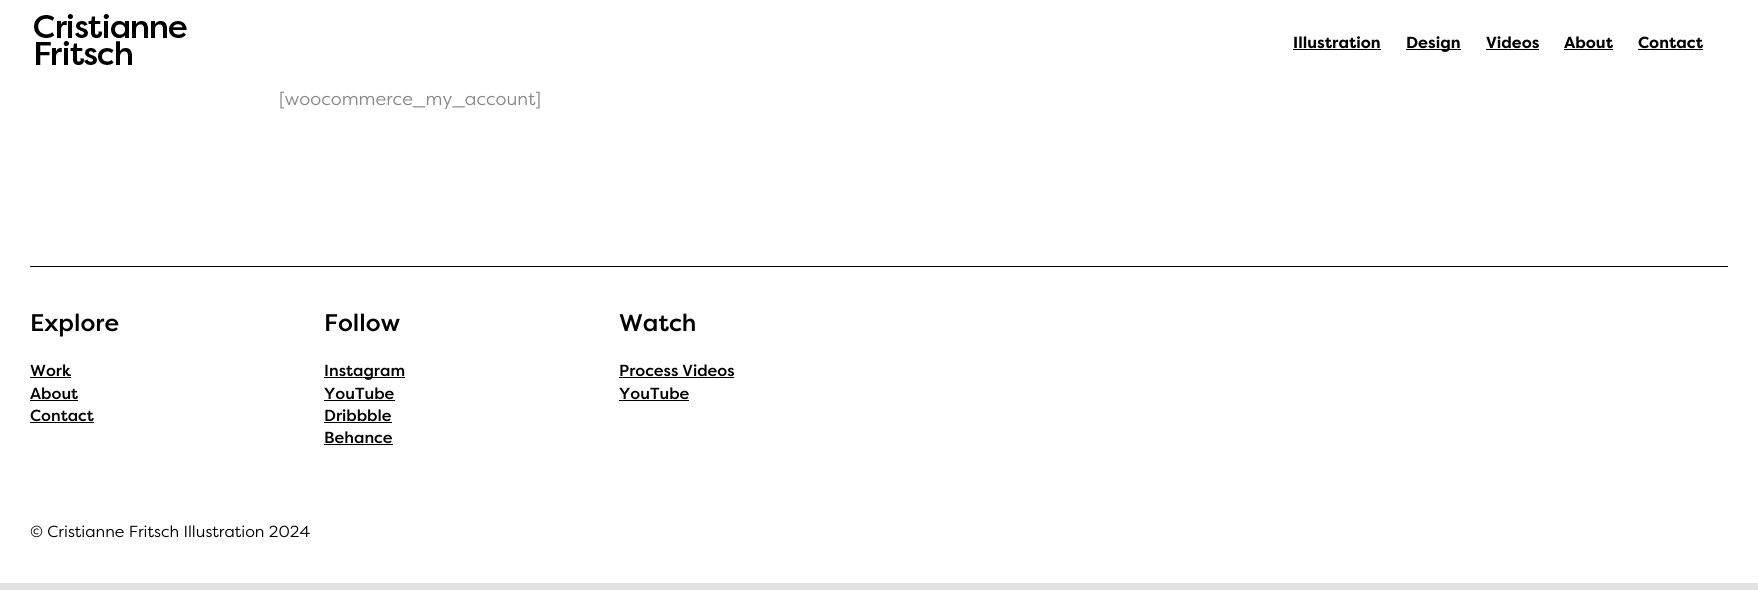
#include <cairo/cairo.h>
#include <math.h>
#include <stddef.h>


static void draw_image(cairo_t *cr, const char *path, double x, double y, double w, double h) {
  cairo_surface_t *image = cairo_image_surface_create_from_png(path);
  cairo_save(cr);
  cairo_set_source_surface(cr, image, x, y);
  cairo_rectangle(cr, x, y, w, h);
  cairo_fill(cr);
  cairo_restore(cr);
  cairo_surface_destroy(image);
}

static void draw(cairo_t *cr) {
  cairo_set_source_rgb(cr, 226 / 255.0, 226 / 255.0, 226 / 255.0);
  cairo_paint(cr);
  cairo_set_source_rgb(cr, 1, 1, 1);
  cairo_rectangle(cr, 0, 0, 1758, 583);
  cairo_fill(cr);
  draw_image(cr, "images/1.png", 34, 14, 153, 51);
  cairo_set_source_rgb(cr, 0, 0, 0);
  cairo_rectangle(cr, 1293, 49, 88, 1);
  cairo_fill(cr);
  cairo_rectangle(cr, 1406, 49, 55, 1);
  cairo_fill(cr);
  cairo_rectangle(cr, 1486, 49, 53, 1);
  cairo_fill(cr);
  cairo_rectangle(cr, 1564, 49, 49, 1);
  cairo_fill(cr);
  cairo_rectangle(cr, 1638, 49, 65, 1);
  cairo_fill(cr);
  cairo_rectangle(cr, 30, 266, 1698, 1);
  cairo_fill(cr);
  cairo_rectangle(cr, 30, 377, 41, 1);
  cairo_fill(cr);
  cairo_rectangle(cr, 30, 400, 48, 1);
  cairo_fill(cr);
  cairo_rectangle(cr, 30, 422, 64, 1);
  cairo_fill(cr);
  cairo_rectangle(cr, 324, 377, 81, 1);
  cairo_fill(cr);
  cairo_rectangle(cr, 324, 400, 71, 1);
  cairo_fill(cr);
  cairo_rectangle(cr, 324, 422, 68, 1);
  cairo_fill(cr);
  cairo_rectangle(cr, 324, 444, 69, 1);
  cairo_fill(cr);
  cairo_rectangle(cr, 619, 377, 115, 1);
  cairo_fill(cr);
  cairo_rectangle(cr, 619, 400, 70, 1);
  cairo_fill(cr);
  cairo_select_font_face(cr, "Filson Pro", CAIRO_FONT_SLANT_NORMAL, CAIRO_FONT_WEIGHT_BOLD);
  cairo_set_font_size(cr, 16);
  cairo_move_to(cr, 1293, 48);
  cairo_show_text(cr, "Illustration");
  cairo_move_to(cr, 1406, 48);
  cairo_show_text(cr, "Design");
  cairo_move_to(cr, 1486, 48);
  cairo_show_text(cr, "Videos");
  cairo_move_to(cr, 1564, 48);
  cairo_show_text(cr, "About");
  cairo_move_to(cr, 1638, 48);
  cairo_show_text(cr, "Contact");
  cairo_select_font_face(cr, "Filson Pro", CAIRO_FONT_SLANT_NORMAL, CAIRO_FONT_WEIGHT_NORMAL);
  cairo_set_font_size(cr, 18);
  cairo_set_source_rgb(cr, 136 / 255.0, 136 / 255.0, 136 / 255.0);
  cairo_move_to(cr, 279, 105);
  cairo_show_text(cr, "[woocommerce_my_account]");
  cairo_select_font_face(cr, "Filson Pro Medium", CAIRO_FONT_SLANT_NORMAL, CAIRO_FONT_WEIGHT_NORMAL);
  cairo_set_font_size(cr, 24);
  cairo_set_source_rgb(cr, 0, 0, 0);
  cairo_move_to(cr, 30, 331);
  cairo_show_text(cr, "Explore");
  cairo_set_font_size(cr, 16);
  cairo_move_to(cr, 30, 376);
  cairo_show_text(cr, "Work");
  cairo_move_to(cr, 30, 399);
  cairo_show_text(cr, "About");
  cairo_move_to(cr, 30, 421);
  cairo_show_text(cr, "Contact");
  cairo_set_font_size(cr, 24);
  cairo_move_to(cr, 324, 331);
  cairo_show_text(cr, "Follow");
  cairo_set_font_size(cr, 16);
  cairo_move_to(cr, 324, 376);
  cairo_show_text(cr, "Instagram");
  cairo_move_to(cr, 324, 399);
  cairo_show_text(cr, "YouTube");
  cairo_move_to(cr, 324, 421);
  cairo_show_text(cr, "Dribbble");
  cairo_move_to(cr, 324, 443);
  cairo_show_text(cr, "Behance");
  cairo_set_font_size(cr, 24);
  cairo_move_to(cr, 619, 331);
  cairo_show_text(cr, "Watch");
  cairo_set_font_size(cr, 16);
  cairo_move_to(cr, 619, 376);
  cairo_show_text(cr, "Process Videos");
  cairo_move_to(cr, 619, 399);
  cairo_show_text(cr, "YouTube");
  cairo_select_font_face(cr, "Filson Pro", CAIRO_FONT_SLANT_NORMAL, CAIRO_FONT_WEIGHT_NORMAL);
  cairo_move_to(cr, 30, 537);
  cairo_show_text(cr, "© Cristianne Fritsch Illustration 2024");
}

int main(void) {
  cairo_surface_t *surface = cairo_image_surface_create(CAIRO_FORMAT_RGB24, 1758, 590);
  cairo_t *cr = cairo_create(surface);
  cairo_font_options_t *options = cairo_font_options_create();
  cairo_font_options_set_hint_metrics(options, CAIRO_HINT_METRICS_OFF);
  cairo_font_options_set_hint_style(options, CAIRO_HINT_STYLE_NONE);
  cairo_set_font_options(cr, options);
  cairo_set_miter_limit(cr, 4);
  draw(cr);
  cairo_surface_write_to_png(surface, "out.png");
  cairo_font_options_destroy(options);
  cairo_destroy(cr);
  cairo_surface_destroy(surface);
  return 0;
}
